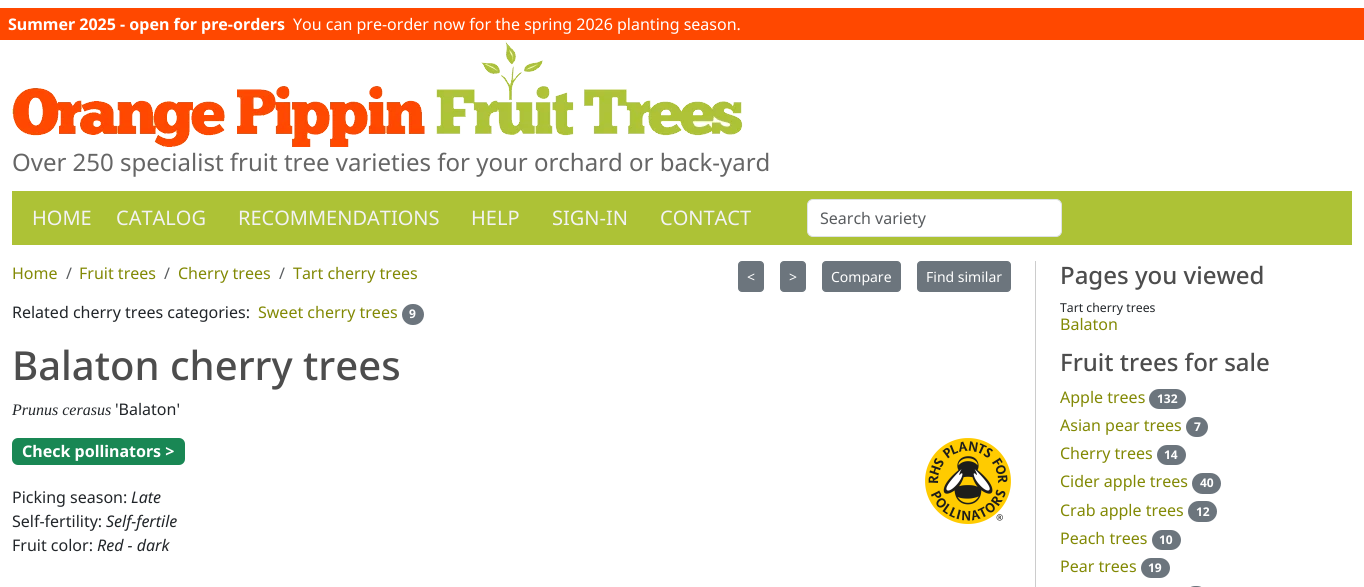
#include <cairo/cairo.h>
#include <math.h>
#include <stddef.h>


static void rounded_rect(cairo_t *cr, double x, double y, double w, double h, double r) {
  cairo_new_sub_path(cr);
  cairo_arc(cr, x + w - r, y + h - r, r, 0, M_PI / 2);
  cairo_arc(cr, x + r, y + h - r, r, M_PI / 2, M_PI);
  cairo_arc(cr, x + r, y + r, r, M_PI, 1.5 * M_PI);
  cairo_arc(cr, x + w - r, y + r, r, 1.5 * M_PI, 2 * M_PI);
  cairo_close_path(cr);
}

static void draw_image(cairo_t *cr, const char *path, double x, double y, double w, double h) {
  cairo_surface_t *image = cairo_image_surface_create_from_png(path);
  cairo_save(cr);
  cairo_set_source_surface(cr, image, x, y);
  cairo_rectangle(cr, x, y, w, h);
  cairo_fill(cr);
  cairo_restore(cr);
  cairo_surface_destroy(image);
}

static void draw(cairo_t *cr) {
  cairo_set_source_rgb(cr, 1, 1, 1);
  cairo_paint(cr);
  cairo_set_source_rgb(cr, 1, 72 / 255.0, 0);
  cairo_rectangle(cr, 0, 8, 1364, 32);
  cairo_fill(cr);
  draw_image(cr, "images/1.png", 12, 41, 731, 106);
  cairo_set_source_rgb(cr, 173 / 255.0, 194 / 255.0, 54 / 255.0);
  cairo_rectangle(cr, 12, 191, 1340, 54);
  cairo_fill(cr);
  cairo_set_source_rgb(cr, 1, 1, 1);
  rounded_rect(cr, 807.5, 199.5, 254, 37, 5.5);
  cairo_fill_preserve(cr);
  cairo_set_source_rgb(cr, 222 / 255.0, 226 / 255.0, 230 / 255.0);
  cairo_set_line_width(cr, 1);
  cairo_stroke(cr);
  cairo_set_source_rgb(cr, 108 / 255.0, 117 / 255.0, 125 / 255.0);
  rounded_rect(cr, 738.5, 261.5, 25, 30, 3.5);
  cairo_fill_preserve(cr);
  cairo_stroke(cr);
  rounded_rect(cr, 780.5, 261.5, 25, 30, 3.5);
  cairo_fill_preserve(cr);
  cairo_stroke(cr);
  rounded_rect(cr, 822.5, 261.5, 78, 30, 3.5);
  cairo_fill_preserve(cr);
  cairo_stroke(cr);
  rounded_rect(cr, 917.5, 261.5, 93, 30, 3.5);
  cairo_fill_preserve(cr);
  cairo_stroke(cr);
  rounded_rect(cr, 402, 304, 22, 21, 10.5);
  cairo_fill(cr);
  cairo_set_source_rgb(cr, 25 / 255.0, 135 / 255.0, 84 / 255.0);
  rounded_rect(cr, 12, 438, 173, 27, 6);
  cairo_fill(cr);
  draw_image(cr, "images/2.png", 925, 438, 86, 86);
  cairo_set_source_rgb(cr, 204 / 255.0, 204 / 255.0, 204 / 255.0);
  cairo_rectangle(cr, 1035, 261, 1, 326);
  cairo_fill(cr);
  cairo_set_source_rgb(cr, 108 / 255.0, 117 / 255.0, 125 / 255.0);
  rounded_rect(cr, 1149, 389, 37, 20, 10);
  cairo_fill(cr);
  rounded_rect(cr, 1186, 417, 22, 20, 10);
  cairo_fill(cr);
  rounded_rect(cr, 1157, 445, 29, 20, 10);
  cairo_fill(cr);
  rounded_rect(cr, 1192, 473, 29, 21, 10.5);
  cairo_fill(cr);
  rounded_rect(cr, 1188, 501, 29, 21, 10.5);
  cairo_fill(cr);
  rounded_rect(cr, 1152, 530, 29, 20, 10);
  cairo_fill(cr);
  rounded_rect(cr, 1141, 558, 29, 20, 10);
  cairo_fill(cr);
  rounded_rect(cr, 1185, 586, 22, 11, 10);
  cairo_fill(cr);
  cairo_select_font_face(cr, "Noto Sans", CAIRO_FONT_SLANT_NORMAL, CAIRO_FONT_WEIGHT_BOLD);
  cairo_set_font_size(cr, 16);
  cairo_set_source_rgb(cr, 1, 1, 1);
  cairo_move_to(cr, 8, 30);
  cairo_show_text(cr, "Summer 2025 - open for pre-orders");
  cairo_select_font_face(cr, "Noto Sans", CAIRO_FONT_SLANT_NORMAL, CAIRO_FONT_WEIGHT_NORMAL);
  cairo_move_to(cr, 293, 30);
  cairo_show_text(cr, "You can pre-order now for the spring 2026 planting season.");
  cairo_set_font_size(cr, 24);
  cairo_set_source_rgb(cr, 102 / 255.0, 102 / 255.0, 102 / 255.0);
  cairo_move_to(cr, 12, 171);
  cairo_show_text(cr, "Over 250 specialist fruit tree varieties for your orchard or back-yard");
  cairo_set_font_size(cr, 20);
  cairo_set_source_rgb(cr, 242 / 255.0, 242 / 255.0, 242 / 255.0);
  cairo_move_to(cr, 32, 225);
  cairo_show_text(cr, "HOME");
  cairo_move_to(cr, 116, 225);
  cairo_show_text(cr, "CATALOG");
  cairo_move_to(cr, 238, 225);
  cairo_show_text(cr, "RECOMMENDATIONS");
  cairo_move_to(cr, 471, 225);
  cairo_show_text(cr, "HELP");
  cairo_move_to(cr, 552, 225);
  cairo_show_text(cr, "SIGN-IN");
  cairo_move_to(cr, 660, 225);
  cairo_show_text(cr, "CONTACT");
  cairo_set_font_size(cr, 16);
  cairo_set_source_rgb(cr, 89 / 255.0, 92 / 255.0, 95 / 255.0);
  cairo_move_to(cr, 820, 224);
  cairo_show_text(cr, "Search variety");
  cairo_set_source_rgb(cr, 130 / 255.0, 137 / 255.0, 4 / 255.0);
  cairo_move_to(cr, 12, 279);
  cairo_show_text(cr, "Home");
  cairo_set_source_rgb(cr, 89 / 255.0, 92 / 255.0, 95 / 255.0);
  cairo_move_to(cr, 66, 279);
  cairo_show_text(cr, "/");
  cairo_set_source_rgb(cr, 130 / 255.0, 137 / 255.0, 4 / 255.0);
  cairo_move_to(cr, 79, 279);
  cairo_show_text(cr, "Fruit trees");
  cairo_set_source_rgb(cr, 89 / 255.0, 92 / 255.0, 95 / 255.0);
  cairo_move_to(cr, 164, 279);
  cairo_show_text(cr, "/");
  cairo_set_source_rgb(cr, 130 / 255.0, 137 / 255.0, 4 / 255.0);
  cairo_move_to(cr, 178, 279);
  cairo_show_text(cr, "Cherry trees");
  cairo_set_source_rgb(cr, 89 / 255.0, 92 / 255.0, 95 / 255.0);
  cairo_move_to(cr, 279, 279);
  cairo_show_text(cr, "/");
  cairo_set_source_rgb(cr, 130 / 255.0, 137 / 255.0, 4 / 255.0);
  cairo_move_to(cr, 293, 279);
  cairo_show_text(cr, "Tart cherry trees");
  cairo_set_font_size(cr, 14);
  cairo_set_source_rgb(cr, 1, 1, 1);
  cairo_move_to(cr, 747, 282);
  cairo_show_text(cr, "<");
  cairo_move_to(cr, 789, 282);
  cairo_show_text(cr, ">");
  cairo_move_to(cr, 831, 282);
  cairo_show_text(cr, "Compare");
  cairo_move_to(cr, 926, 282);
  cairo_show_text(cr, "Find similar");
  cairo_set_font_size(cr, 16);
  cairo_set_source_rgb(cr, 33 / 255.0, 37 / 255.0, 41 / 255.0);
  cairo_move_to(cr, 12, 318);
  cairo_show_text(cr, "Related cherry trees categories:");
  cairo_set_source_rgb(cr, 130 / 255.0, 137 / 255.0, 4 / 255.0);
  cairo_move_to(cr, 258, 318);
  cairo_show_text(cr, "Sweet cherry trees");
  cairo_select_font_face(cr, "Noto Sans", CAIRO_FONT_SLANT_NORMAL, CAIRO_FONT_WEIGHT_BOLD);
  cairo_set_font_size(cr, 12);
  cairo_set_source_rgb(cr, 1, 1, 1);
  cairo_move_to(cr, 409, 318);
  cairo_show_text(cr, "9");
  cairo_select_font_face(cr, "Noto Sans Medium", CAIRO_FONT_SLANT_NORMAL, CAIRO_FONT_WEIGHT_NORMAL);
  cairo_set_font_size(cr, 40);
  cairo_set_source_rgb(cr, 77 / 255.0, 77 / 255.0, 77 / 255.0);
  cairo_move_to(cr, 12, 380);
  cairo_show_text(cr, "Balaton cherry trees");
  cairo_select_font_face(cr, "Liberation Serif", CAIRO_FONT_SLANT_ITALIC, CAIRO_FONT_WEIGHT_NORMAL);
  cairo_set_font_size(cr, 16);
  cairo_set_source_rgb(cr, 33 / 255.0, 37 / 255.0, 41 / 255.0);
  cairo_move_to(cr, 12, 415);
  cairo_show_text(cr, "Prunus cerasus");
  cairo_select_font_face(cr, "Noto Sans", CAIRO_FONT_SLANT_NORMAL, CAIRO_FONT_WEIGHT_NORMAL);
  cairo_move_to(cr, 115, 415);
  cairo_show_text(cr, "'Balaton'");
  cairo_select_font_face(cr, "Noto Sans", CAIRO_FONT_SLANT_NORMAL, CAIRO_FONT_WEIGHT_BOLD);
  cairo_set_source_rgb(cr, 1, 1, 1);
  cairo_move_to(cr, 22, 457);
  cairo_show_text(cr, "Check pollinators >");
  cairo_select_font_face(cr, "Noto Sans", CAIRO_FONT_SLANT_NORMAL, CAIRO_FONT_WEIGHT_NORMAL);
  cairo_set_source_rgb(cr, 33 / 255.0, 37 / 255.0, 41 / 255.0);
  cairo_move_to(cr, 12, 503);
  cairo_show_text(cr, "Picking season:");
  cairo_select_font_face(cr, "Noto Sans", CAIRO_FONT_SLANT_ITALIC, CAIRO_FONT_WEIGHT_NORMAL);
  cairo_move_to(cr, 131, 503);
  cairo_show_text(cr, "Late");
  cairo_select_font_face(cr, "Noto Sans", CAIRO_FONT_SLANT_NORMAL, CAIRO_FONT_WEIGHT_NORMAL);
  cairo_move_to(cr, 12, 527);
  cairo_show_text(cr, "Self-fertility:");
  cairo_select_font_face(cr, "Noto Sans", CAIRO_FONT_SLANT_ITALIC, CAIRO_FONT_WEIGHT_NORMAL);
  cairo_move_to(cr, 106, 527);
  cairo_show_text(cr, "Self-fertile");
  cairo_select_font_face(cr, "Noto Sans", CAIRO_FONT_SLANT_NORMAL, CAIRO_FONT_WEIGHT_NORMAL);
  cairo_move_to(cr, 12, 551);
  cairo_show_text(cr, "Fruit color:");
  cairo_select_font_face(cr, "Noto Sans", CAIRO_FONT_SLANT_ITALIC, CAIRO_FONT_WEIGHT_NORMAL);
  cairo_move_to(cr, 97, 551);
  cairo_show_text(cr, "Red - dark");
  cairo_select_font_face(cr, "Noto Sans Medium", CAIRO_FONT_SLANT_NORMAL, CAIRO_FONT_WEIGHT_NORMAL);
  cairo_set_font_size(cr, 24);
  cairo_set_source_rgb(cr, 77 / 255.0, 77 / 255.0, 77 / 255.0);
  cairo_move_to(cr, 1060, 284);
  cairo_show_text(cr, "Pages you viewed");
  cairo_select_font_face(cr, "Noto Sans", CAIRO_FONT_SLANT_NORMAL, CAIRO_FONT_WEIGHT_NORMAL);
  cairo_set_font_size(cr, 12.25);
  cairo_set_source_rgb(cr, 33 / 255.0, 37 / 255.0, 41 / 255.0);
  cairo_move_to(cr, 1060, 312);
  cairo_show_text(cr, "Tart cherry trees");
  cairo_set_font_size(cr, 16);
  cairo_set_source_rgb(cr, 130 / 255.0, 137 / 255.0, 4 / 255.0);
  cairo_move_to(cr, 1060, 330);
  cairo_show_text(cr, "Balaton");
  cairo_select_font_face(cr, "Noto Sans Medium", CAIRO_FONT_SLANT_NORMAL, CAIRO_FONT_WEIGHT_NORMAL);
  cairo_set_font_size(cr, 24);
  cairo_set_source_rgb(cr, 77 / 255.0, 77 / 255.0, 77 / 255.0);
  cairo_move_to(cr, 1060, 371);
  cairo_show_text(cr, "Fruit trees for sale");
  cairo_select_font_face(cr, "Noto Sans", CAIRO_FONT_SLANT_NORMAL, CAIRO_FONT_WEIGHT_NORMAL);
  cairo_set_font_size(cr, 16);
  cairo_set_source_rgb(cr, 130 / 255.0, 137 / 255.0, 4 / 255.0);
  cairo_move_to(cr, 1060, 403);
  cairo_show_text(cr, "Apple trees");
  cairo_select_font_face(cr, "Noto Sans", CAIRO_FONT_SLANT_NORMAL, CAIRO_FONT_WEIGHT_BOLD);
  cairo_set_font_size(cr, 12);
  cairo_set_source_rgb(cr, 1, 1, 1);
  cairo_move_to(cr, 1157, 403);
  cairo_show_text(cr, "132");
  cairo_select_font_face(cr, "Noto Sans", CAIRO_FONT_SLANT_NORMAL, CAIRO_FONT_WEIGHT_NORMAL);
  cairo_set_font_size(cr, 16);
  cairo_set_source_rgb(cr, 130 / 255.0, 137 / 255.0, 4 / 255.0);
  cairo_move_to(cr, 1060, 431);
  cairo_show_text(cr, "Asian pear trees");
  cairo_select_font_face(cr, "Noto Sans", CAIRO_FONT_SLANT_NORMAL, CAIRO_FONT_WEIGHT_BOLD);
  cairo_set_font_size(cr, 12);
  cairo_set_source_rgb(cr, 1, 1, 1);
  cairo_move_to(cr, 1194, 431);
  cairo_show_text(cr, "7");
  cairo_select_font_face(cr, "Noto Sans", CAIRO_FONT_SLANT_NORMAL, CAIRO_FONT_WEIGHT_NORMAL);
  cairo_set_font_size(cr, 16);
  cairo_set_source_rgb(cr, 130 / 255.0, 137 / 255.0, 4 / 255.0);
  cairo_move_to(cr, 1060, 459);
  cairo_show_text(cr, "Cherry trees");
  cairo_select_font_face(cr, "Noto Sans", CAIRO_FONT_SLANT_NORMAL, CAIRO_FONT_WEIGHT_BOLD);
  cairo_set_font_size(cr, 12);
  cairo_set_source_rgb(cr, 1, 1, 1);
  cairo_move_to(cr, 1164, 459);
  cairo_show_text(cr, "14");
  cairo_select_font_face(cr, "Noto Sans", CAIRO_FONT_SLANT_NORMAL, CAIRO_FONT_WEIGHT_NORMAL);
  cairo_set_font_size(cr, 16);
  cairo_set_source_rgb(cr, 130 / 255.0, 137 / 255.0, 4 / 255.0);
  cairo_move_to(cr, 1060, 487);
  cairo_show_text(cr, "Cider apple trees");
  cairo_select_font_face(cr, "Noto Sans", CAIRO_FONT_SLANT_NORMAL, CAIRO_FONT_WEIGHT_BOLD);
  cairo_set_font_size(cr, 12);
  cairo_set_source_rgb(cr, 1, 1, 1);
  cairo_move_to(cr, 1200, 487);
  cairo_show_text(cr, "40");
  cairo_select_font_face(cr, "Noto Sans", CAIRO_FONT_SLANT_NORMAL, CAIRO_FONT_WEIGHT_NORMAL);
  cairo_set_font_size(cr, 16);
  cairo_set_source_rgb(cr, 130 / 255.0, 137 / 255.0, 4 / 255.0);
  cairo_move_to(cr, 1060, 516);
  cairo_show_text(cr, "Crab apple trees");
  cairo_select_font_face(cr, "Noto Sans", CAIRO_FONT_SLANT_NORMAL, CAIRO_FONT_WEIGHT_BOLD);
  cairo_set_font_size(cr, 12);
  cairo_set_source_rgb(cr, 1, 1, 1);
  cairo_move_to(cr, 1196, 516);
  cairo_show_text(cr, "12");
  cairo_select_font_face(cr, "Noto Sans", CAIRO_FONT_SLANT_NORMAL, CAIRO_FONT_WEIGHT_NORMAL);
  cairo_set_font_size(cr, 16);
  cairo_set_source_rgb(cr, 130 / 255.0, 137 / 255.0, 4 / 255.0);
  cairo_move_to(cr, 1060, 544);
  cairo_show_text(cr, "Peach trees");
  cairo_select_font_face(cr, "Noto Sans", CAIRO_FONT_SLANT_NORMAL, CAIRO_FONT_WEIGHT_BOLD);
  cairo_set_font_size(cr, 12);
  cairo_set_source_rgb(cr, 1, 1, 1);
  cairo_move_to(cr, 1159, 544);
  cairo_show_text(cr, "10");
  cairo_select_font_face(cr, "Noto Sans", CAIRO_FONT_SLANT_NORMAL, CAIRO_FONT_WEIGHT_NORMAL);
  cairo_set_font_size(cr, 16);
  cairo_set_source_rgb(cr, 130 / 255.0, 137 / 255.0, 4 / 255.0);
  cairo_move_to(cr, 1060, 572);
  cairo_show_text(cr, "Pear trees");
  cairo_select_font_face(cr, "Noto Sans", CAIRO_FONT_SLANT_NORMAL, CAIRO_FONT_WEIGHT_BOLD);
  cairo_set_font_size(cr, 12);
  cairo_set_source_rgb(cr, 1, 1, 1);
  cairo_move_to(cr, 1148, 572);
  cairo_show_text(cr, "19");
}

int main(void) {
  cairo_surface_t *surface = cairo_image_surface_create(CAIRO_FORMAT_RGB24, 1364, 587);
  cairo_t *cr = cairo_create(surface);
  cairo_font_options_t *options = cairo_font_options_create();
  cairo_font_options_set_hint_metrics(options, CAIRO_HINT_METRICS_OFF);
  cairo_font_options_set_hint_style(options, CAIRO_HINT_STYLE_NONE);
  cairo_set_font_options(cr, options);
  cairo_set_miter_limit(cr, 4);
  draw(cr);
  cairo_surface_write_to_png(surface, "out.png");
  cairo_font_options_destroy(options);
  cairo_destroy(cr);
  cairo_surface_destroy(surface);
  return 0;
}
